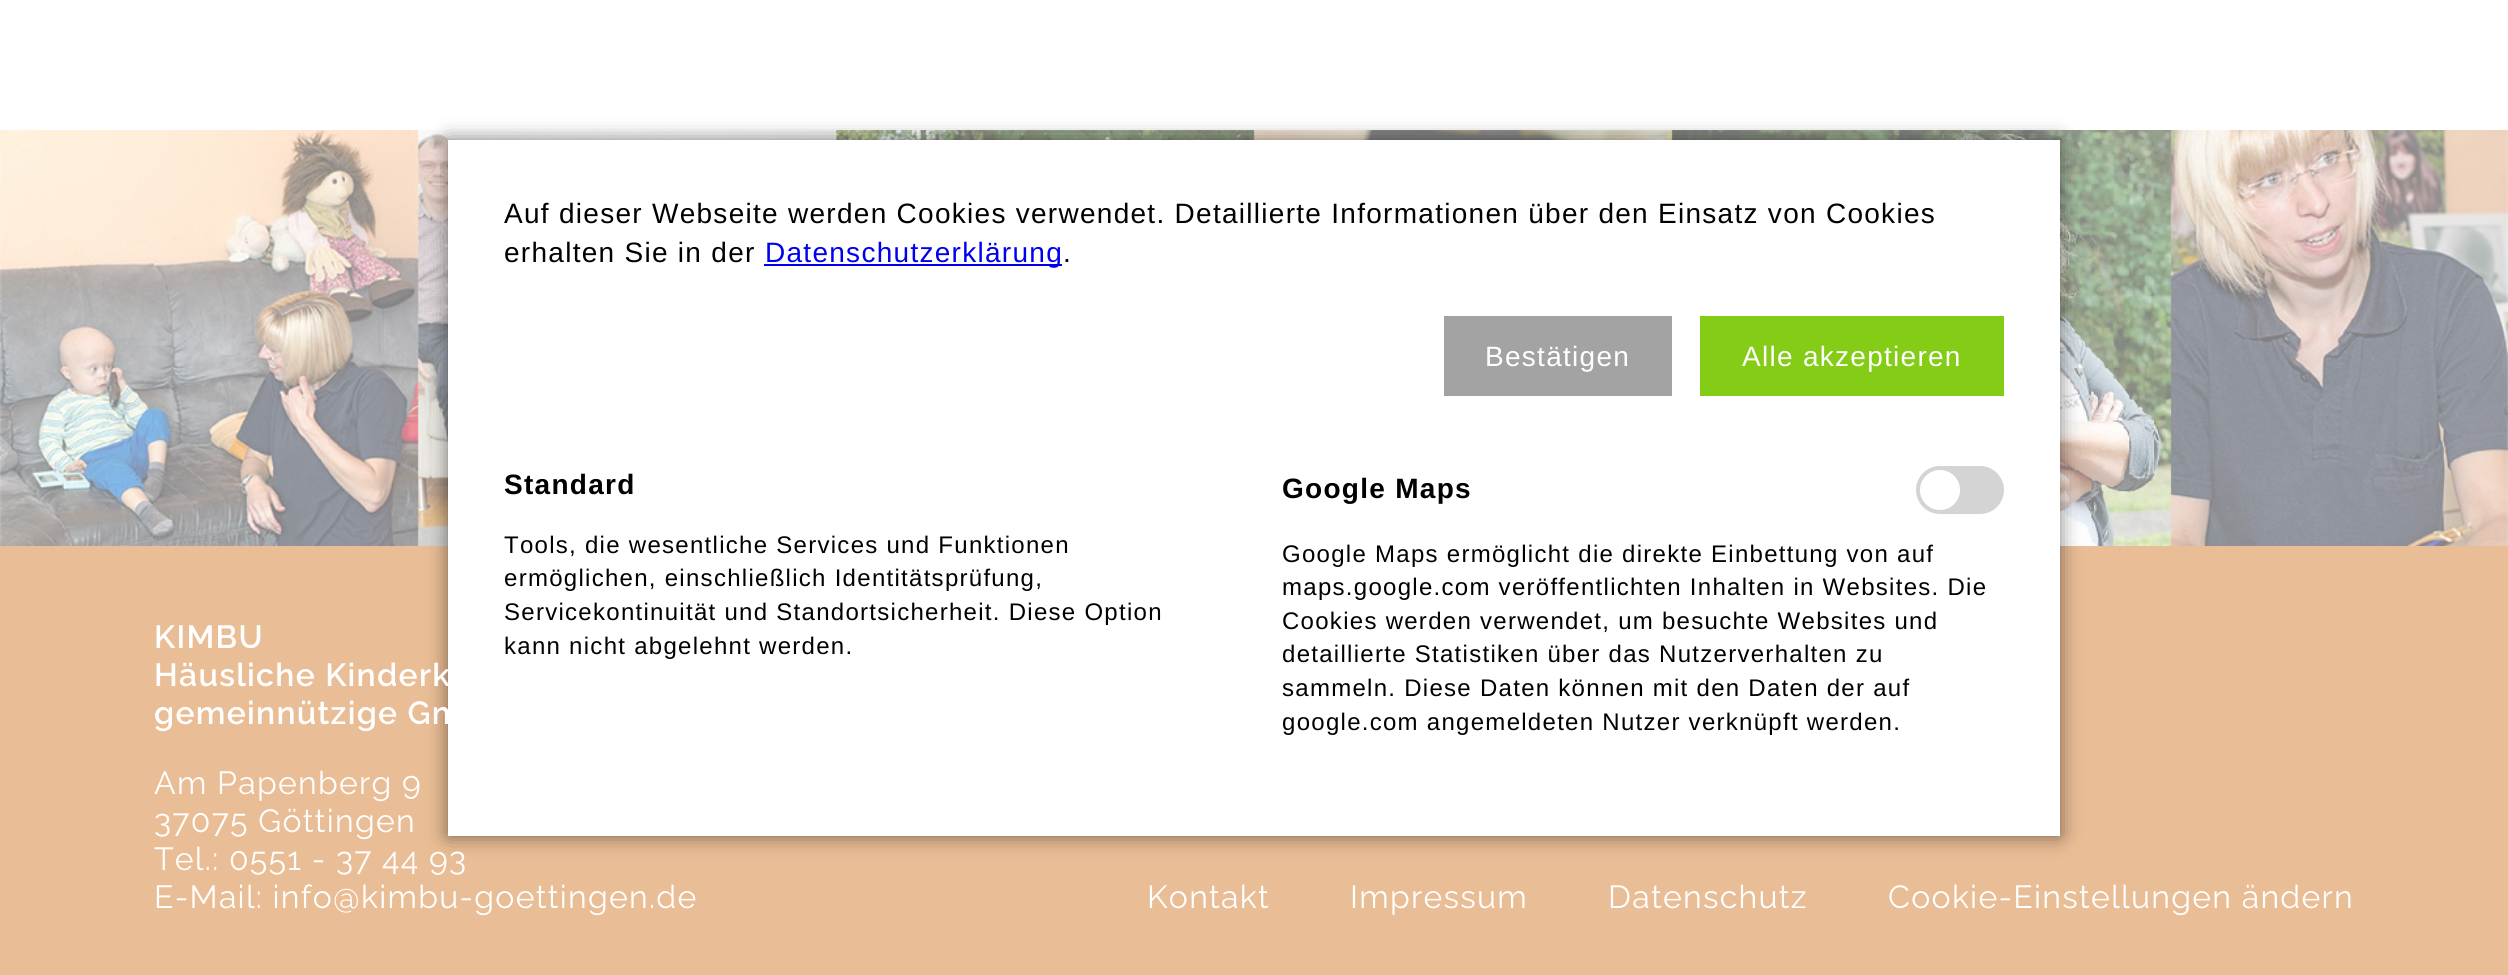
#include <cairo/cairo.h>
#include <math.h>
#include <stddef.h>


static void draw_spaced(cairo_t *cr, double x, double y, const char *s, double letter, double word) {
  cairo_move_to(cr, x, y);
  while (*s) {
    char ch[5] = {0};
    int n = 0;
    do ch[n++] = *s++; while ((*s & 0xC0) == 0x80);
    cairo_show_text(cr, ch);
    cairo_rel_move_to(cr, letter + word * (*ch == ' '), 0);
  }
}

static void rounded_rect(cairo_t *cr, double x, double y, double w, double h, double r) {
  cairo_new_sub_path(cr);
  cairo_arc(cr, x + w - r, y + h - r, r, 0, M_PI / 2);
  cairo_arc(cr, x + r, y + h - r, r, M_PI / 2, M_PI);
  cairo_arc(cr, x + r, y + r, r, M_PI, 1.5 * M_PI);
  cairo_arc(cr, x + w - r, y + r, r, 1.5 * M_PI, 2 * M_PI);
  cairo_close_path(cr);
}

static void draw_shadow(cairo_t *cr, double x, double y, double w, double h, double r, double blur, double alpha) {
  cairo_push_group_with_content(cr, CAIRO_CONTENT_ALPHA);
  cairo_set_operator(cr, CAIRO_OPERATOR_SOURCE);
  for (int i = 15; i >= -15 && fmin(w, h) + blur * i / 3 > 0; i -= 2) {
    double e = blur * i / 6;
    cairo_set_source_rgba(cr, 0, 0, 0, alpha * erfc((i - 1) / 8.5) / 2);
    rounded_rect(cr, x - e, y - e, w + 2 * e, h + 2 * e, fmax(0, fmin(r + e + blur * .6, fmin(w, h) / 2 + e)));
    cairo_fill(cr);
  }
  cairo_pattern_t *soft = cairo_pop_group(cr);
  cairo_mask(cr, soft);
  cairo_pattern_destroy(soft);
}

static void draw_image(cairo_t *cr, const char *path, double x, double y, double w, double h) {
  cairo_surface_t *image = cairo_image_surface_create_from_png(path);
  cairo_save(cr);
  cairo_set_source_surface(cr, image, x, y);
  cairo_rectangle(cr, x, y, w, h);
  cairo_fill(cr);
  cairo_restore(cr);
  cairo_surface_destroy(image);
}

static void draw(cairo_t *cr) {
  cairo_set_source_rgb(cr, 1, 1, 1);
  cairo_paint(cr);
  draw_image(cr, "images/1.png", 0, 130, 2508, 416);
  cairo_set_source_rgb(cr, 233 / 255.0, 189 / 255.0, 149 / 255.0);
  cairo_rectangle(cr, 0, 546, 2508, 429);
  cairo_fill(cr);
  cairo_set_source_rgb(cr, 0, 0, 0);
  draw_shadow(cr, 448, 140, 1612, 696, 0, 10, 0.5);
  cairo_set_source_rgb(cr, 1, 1, 1);
  cairo_rectangle(cr, 448, 140, 1612, 696);
  cairo_fill(cr);
  cairo_set_source_rgb(cr, 0, 0, 238 / 255.0);
  cairo_rectangle(cr, 764, 264, 298, 2);
  cairo_fill(cr);
  cairo_set_source_rgb(cr, 163 / 255.0, 163 / 255.0, 163 / 255.0);
  cairo_rectangle(cr, 1444, 316, 228, 80);
  cairo_fill(cr);
  cairo_set_source_rgb(cr, 132 / 255.0, 204 / 255.0, 22 / 255.0);
  cairo_rectangle(cr, 1700, 316, 304, 80);
  cairo_fill(cr);
  cairo_set_source_rgb(cr, 212 / 255.0, 212 / 255.0, 212 / 255.0);
  rounded_rect(cr, 1916, 466, 88, 48, 24);
  cairo_fill(cr);
  cairo_set_source_rgb(cr, 1, 1, 1);
  cairo_arc(cr, 1940, 490, 20, 0, 2 * M_PI);
  cairo_fill(cr);
  cairo_select_font_face(cr, "Liberation Sans", CAIRO_FONT_SLANT_NORMAL, CAIRO_FONT_WEIGHT_NORMAL);
  cairo_set_font_size(cr, 28);
  cairo_set_source_rgb(cr, 0, 0, 0);
  draw_spaced(cr, 504, 223, "Auf dieser Webseite werden Cookies verwendet. Detaillierte Informationen über den Einsatz von Cookies", 1.28, 0);
  draw_spaced(cr, 504, 262, "erhalten Sie in der", 1.28, 0);
  cairo_set_source_rgb(cr, 0, 0, 238 / 255.0);
  draw_spaced(cr, 765, 262, "Datenschutzerklärung", 1.28, 0);
  cairo_set_source_rgb(cr, 0, 0, 0);
  draw_spaced(cr, 1063, 262, ".", 1.28, 0);
  cairo_set_source_rgb(cr, 1, 1, 1);
  draw_spaced(cr, 1485, 366, "Bestätigen", 1.28, 0);
  draw_spaced(cr, 1742, 366, "Alle akzeptieren", 1.28, 0);
  cairo_select_font_face(cr, "Liberation Sans", CAIRO_FONT_SLANT_NORMAL, CAIRO_FONT_WEIGHT_BOLD);
  cairo_set_source_rgb(cr, 0, 0, 0);
  draw_spaced(cr, 504, 494, "Standard", 1.28, 0);
  cairo_select_font_face(cr, "Liberation Sans", CAIRO_FONT_SLANT_NORMAL, CAIRO_FONT_WEIGHT_NORMAL);
  cairo_set_font_size(cr, 24);
  draw_spaced(cr, 504, 553, "Tools, die wesentliche Services und Funktionen", 1.28, 0);
  draw_spaced(cr, 504, 586, "ermöglichen, einschließlich Identitätsprüfung,", 1.28, 0);
  draw_spaced(cr, 504, 620, "Servicekontinuität und Standortsicherheit. Diese Option", 1.28, 0);
  draw_spaced(cr, 504, 654, "kann nicht abgelehnt werden.", 1.28, 0);
  cairo_select_font_face(cr, "Liberation Sans", CAIRO_FONT_SLANT_NORMAL, CAIRO_FONT_WEIGHT_BOLD);
  cairo_set_font_size(cr, 28);
  draw_spaced(cr, 1282, 498, "Google Maps", 1.28, 0);
  cairo_select_font_face(cr, "Liberation Sans", CAIRO_FONT_SLANT_NORMAL, CAIRO_FONT_WEIGHT_NORMAL);
  cairo_set_font_size(cr, 24);
  draw_spaced(cr, 1282, 562, "Google Maps ermöglicht die direkte Einbettung von auf", 1.28, 0);
  draw_spaced(cr, 1282, 595, "maps.google.com veröffentlichten Inhalten in Websites. Die", 1.28, 0);
  draw_spaced(cr, 1282, 629, "Cookies werden verwendet, um besuchte Websites und", 1.28, 0);
  draw_spaced(cr, 1282, 662, "detaillierte Statistiken über das Nutzerverhalten zu", 1.28, 0);
  draw_spaced(cr, 1282, 696, "sammeln. Diese Daten können mit den Daten der auf", 1.28, 0);
  draw_spaced(cr, 1282, 730, "google.com angemeldeten Nutzer verknüpft werden.", 1.28, 0);
  cairo_select_font_face(cr, "Raleway Thin", CAIRO_FONT_SLANT_NORMAL, CAIRO_FONT_WEIGHT_NORMAL);
  cairo_set_font_size(cr, 32);
  cairo_set_source_rgb(cr, 1, 1, 1);
  draw_spaced(cr, 154, 648, "KIMBU", 1.28, 0);
  draw_spaced(cr, 154, 686, "Häusliche Kinderk", 1.28, 0);
  draw_spaced(cr, 154, 724, "gemeinnützige Gm", 1.28, 0);
  cairo_select_font_face(cr, "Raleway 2 Thin", CAIRO_FONT_SLANT_NORMAL, CAIRO_FONT_WEIGHT_NORMAL);
  draw_spaced(cr, 154, 794, "Am Papenberg 9", 1.28, 0);
  draw_spaced(cr, 154, 832, "37075 Göttingen", 1.28, 0);
  draw_spaced(cr, 154, 870, "Tel.: 0551 - 37 44 93", 1.28, 0);
  draw_spaced(cr, 154, 908, "E-Mail: info@kimbu-goettingen.de", 1.28, 0);
  draw_spaced(cr, 1147, 908, "Kontakt", 1.28, 0);
  draw_spaced(cr, 1350, 908, "Impressum", 1.28, 0);
  draw_spaced(cr, 1608, 908, "Datenschutz", 1.28, 0);
  draw_spaced(cr, 1888, 908, "Cookie-Einstellungen ändern", 1.28, 0);
}

int main(void) {
  cairo_surface_t *surface = cairo_image_surface_create(CAIRO_FORMAT_RGB24, 2508, 975);
  cairo_t *cr = cairo_create(surface);
  cairo_font_options_t *options = cairo_font_options_create();
  cairo_font_options_set_hint_metrics(options, CAIRO_HINT_METRICS_OFF);
  cairo_font_options_set_hint_style(options, CAIRO_HINT_STYLE_NONE);
  cairo_set_font_options(cr, options);
  cairo_set_miter_limit(cr, 4);
  draw(cr);
  cairo_surface_write_to_png(surface, "out.png");
  cairo_font_options_destroy(options);
  cairo_destroy(cr);
  cairo_surface_destroy(surface);
  return 0;
}
